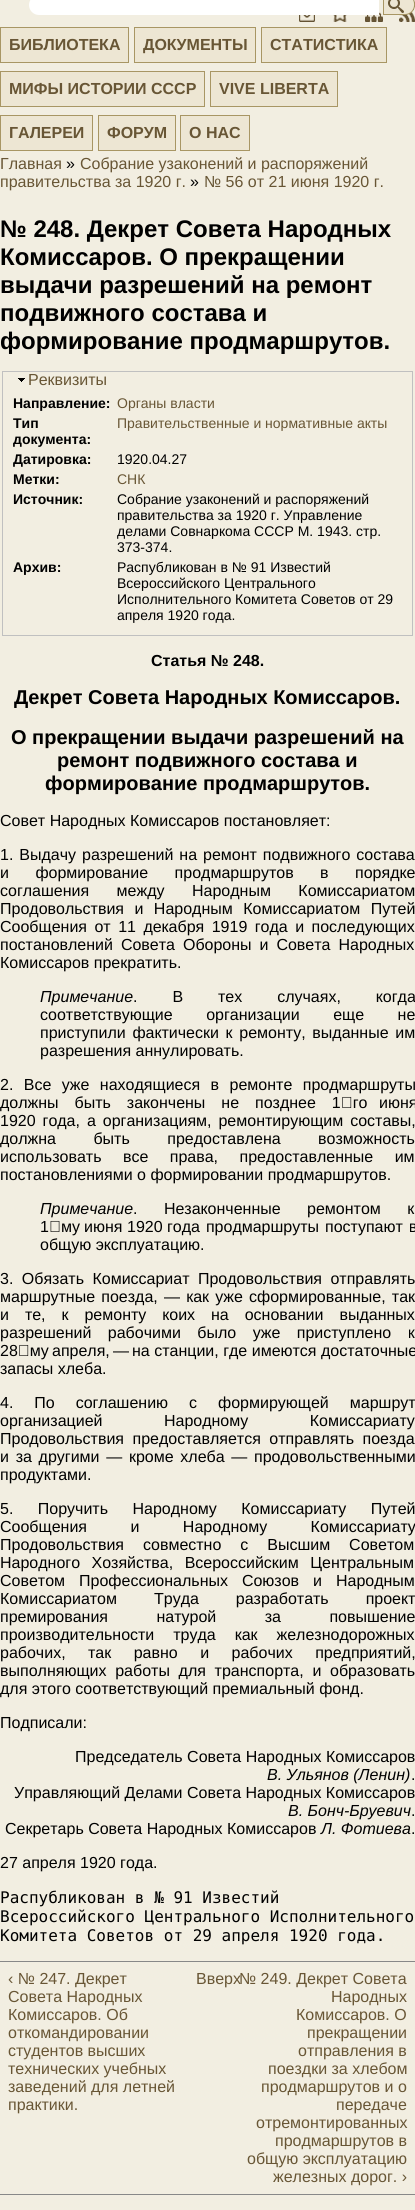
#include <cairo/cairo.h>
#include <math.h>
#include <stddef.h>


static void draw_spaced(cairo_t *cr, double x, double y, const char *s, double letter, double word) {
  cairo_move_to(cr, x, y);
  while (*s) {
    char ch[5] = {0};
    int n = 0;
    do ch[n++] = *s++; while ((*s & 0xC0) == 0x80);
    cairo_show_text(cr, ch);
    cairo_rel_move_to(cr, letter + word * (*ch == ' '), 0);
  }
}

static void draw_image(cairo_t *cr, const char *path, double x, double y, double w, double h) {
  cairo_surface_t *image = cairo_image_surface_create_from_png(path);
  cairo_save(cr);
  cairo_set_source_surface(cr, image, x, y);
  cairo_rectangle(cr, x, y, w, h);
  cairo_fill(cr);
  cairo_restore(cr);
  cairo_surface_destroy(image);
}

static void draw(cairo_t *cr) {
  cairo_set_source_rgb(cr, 242 / 255.0, 238 / 255.0, 225 / 255.0);
  cairo_paint(cr);
  draw_image(cr, "images/4.png", 365, 12, 18, 10);
  cairo_set_source_rgb(cr, 1, 1, 1);
  cairo_new_path(cr);
  cairo_move_to(cr, 39, -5);
  cairo_line_to(cr, 379, -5);
  cairo_line_to(cr, 379, 15);
  cairo_line_to(cr, 39, 15);
  cairo_curve_to(cr, 33.5, 15, 29, 10.5, 29, 5);
  cairo_curve_to(cr, 29, -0.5, 33.5, -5, 39, -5);
  cairo_close_path(cr);
  cairo_fill(cr);
  draw_image(cr, "images/5.png", 399, 12, 16, 10);
  draw_image(cr, "images/1.png", 383, 0, 32, 15);
  draw_image(cr, "images/2.png", 299, 15, 16, 7);
  draw_image(cr, "images/3.png", 333, 15, 14, 7);
  cairo_set_source_rgb(cr, 237 / 255.0, 230 / 255.0, 211 / 255.0);
  cairo_rectangle(cr, 0.5, 27.5, 128, 35);
  cairo_fill_preserve(cr);
  cairo_set_source_rgb(cr, 168 / 255.0, 150 / 255.0, 100 / 255.0);
  cairo_set_line_width(cr, 1);
  cairo_stroke(cr);
  cairo_set_source_rgb(cr, 237 / 255.0, 230 / 255.0, 211 / 255.0);
  cairo_rectangle(cr, 134.5, 27.5, 121, 35);
  cairo_fill_preserve(cr);
  cairo_set_source_rgb(cr, 168 / 255.0, 150 / 255.0, 100 / 255.0);
  cairo_stroke(cr);
  cairo_set_source_rgb(cr, 237 / 255.0, 230 / 255.0, 211 / 255.0);
  cairo_rectangle(cr, 261.5, 27.5, 125, 35);
  cairo_fill_preserve(cr);
  cairo_set_source_rgb(cr, 168 / 255.0, 150 / 255.0, 100 / 255.0);
  cairo_stroke(cr);
  cairo_set_source_rgb(cr, 237 / 255.0, 230 / 255.0, 211 / 255.0);
  cairo_rectangle(cr, 0.5, 71.5, 204, 35);
  cairo_fill_preserve(cr);
  cairo_set_source_rgb(cr, 168 / 255.0, 150 / 255.0, 100 / 255.0);
  cairo_stroke(cr);
  cairo_set_source_rgb(cr, 237 / 255.0, 230 / 255.0, 211 / 255.0);
  cairo_rectangle(cr, 210.5, 71.5, 127, 35);
  cairo_fill_preserve(cr);
  cairo_set_source_rgb(cr, 168 / 255.0, 150 / 255.0, 100 / 255.0);
  cairo_stroke(cr);
  cairo_set_source_rgb(cr, 237 / 255.0, 230 / 255.0, 211 / 255.0);
  cairo_rectangle(cr, 0.5, 115.5, 92, 35);
  cairo_fill_preserve(cr);
  cairo_set_source_rgb(cr, 168 / 255.0, 150 / 255.0, 100 / 255.0);
  cairo_stroke(cr);
  cairo_set_source_rgb(cr, 237 / 255.0, 230 / 255.0, 211 / 255.0);
  cairo_rectangle(cr, 98.5, 115.5, 77, 35);
  cairo_fill_preserve(cr);
  cairo_set_source_rgb(cr, 168 / 255.0, 150 / 255.0, 100 / 255.0);
  cairo_stroke(cr);
  cairo_set_source_rgb(cr, 237 / 255.0, 230 / 255.0, 211 / 255.0);
  cairo_rectangle(cr, 180.5, 115.5, 69, 35);
  cairo_fill_preserve(cr);
  cairo_set_source_rgb(cr, 168 / 255.0, 150 / 255.0, 100 / 255.0);
  cairo_stroke(cr);
  cairo_rectangle(cr, 2.5, 371.5, 410, 264);
  cairo_set_source_rgb(cr, 192 / 255.0, 192 / 255.0, 192 / 255.0);
  cairo_stroke(cr);
  draw_image(cr, "images/6.png", 18, 378, 7, 4);
  cairo_set_source_rgb(cr, 136 / 255.0, 136 / 255.0, 136 / 255.0);
  cairo_rectangle(cr, 0, 1961, 415, 1);
  cairo_fill(cr);
  cairo_rectangle(cr, 0, 2194, 415, 1);
  cairo_fill(cr);
  cairo_select_font_face(cr, "Liberation Sans", CAIRO_FONT_SLANT_NORMAL, CAIRO_FONT_WEIGHT_BOLD);
  cairo_set_font_size(cr, 16);
  cairo_set_source_rgb(cr, 104 / 255.0, 86 / 255.0, 53 / 255.0);
  cairo_move_to(cr, 9, 50);
  cairo_show_text(cr, "БИБЛИОТЕКА");
  cairo_move_to(cr, 143, 50);
  cairo_show_text(cr, "ДОКУМЕНТЫ");
  cairo_move_to(cr, 270, 50);
  cairo_show_text(cr, "СТАТИСТИКА");
  cairo_move_to(cr, 9, 94);
  cairo_show_text(cr, "МИФЫ ИСТОРИИ СССР");
  cairo_move_to(cr, 219, 94);
  cairo_show_text(cr, "VIVE LIBERTA");
  cairo_move_to(cr, 9, 138);
  cairo_show_text(cr, "ГАЛЕРЕИ");
  cairo_move_to(cr, 107, 138);
  cairo_show_text(cr, "ФОРУМ");
  cairo_move_to(cr, 189, 138);
  cairo_show_text(cr, "О НАС");
  cairo_select_font_face(cr, "Liberation Sans", CAIRO_FONT_SLANT_NORMAL, CAIRO_FONT_WEIGHT_NORMAL);
  cairo_move_to(cr, 0, 169);
  cairo_show_text(cr, "Главная");
  cairo_set_source_rgb(cr, 0, 0, 0);
  cairo_move_to(cr, 66, 169);
  cairo_show_text(cr, "»");
  cairo_set_source_rgb(cr, 104 / 255.0, 86 / 255.0, 53 / 255.0);
  cairo_move_to(cr, 80, 169);
  cairo_show_text(cr, "Собрание узаконений и распоряжений");
  cairo_move_to(cr, 0, 187);
  cairo_show_text(cr, "правительства за 1920 г.");
  cairo_set_source_rgb(cr, 0, 0, 0);
  cairo_move_to(cr, 190, 187);
  cairo_show_text(cr, "»");
  cairo_set_source_rgb(cr, 104 / 255.0, 86 / 255.0, 53 / 255.0);
  cairo_move_to(cr, 204, 187);
  cairo_show_text(cr, "№ 56 от 21 июня 1920 г.");
  cairo_select_font_face(cr, "Liberation Sans", CAIRO_FONT_SLANT_NORMAL, CAIRO_FONT_WEIGHT_BOLD);
  cairo_set_font_size(cr, 24);
  cairo_set_source_rgb(cr, 0, 0, 0);
  cairo_move_to(cr, 0, 237);
  cairo_show_text(cr, "№ 248. Декрет Совета Народных");
  cairo_move_to(cr, 0, 265);
  cairo_show_text(cr, "Комиссаров. О прекращении");
  cairo_move_to(cr, 0, 293);
  cairo_show_text(cr, "выдачи разрешений на ремонт");
  cairo_move_to(cr, 0, 321);
  cairo_show_text(cr, "подвижного состава и");
  cairo_move_to(cr, 0, 349);
  cairo_show_text(cr, "формирование продмаршрутов.");
  cairo_select_font_face(cr, "Liberation Sans", CAIRO_FONT_SLANT_NORMAL, CAIRO_FONT_WEIGHT_NORMAL);
  cairo_set_font_size(cr, 16);
  cairo_set_source_rgb(cr, 104 / 255.0, 86 / 255.0, 53 / 255.0);
  cairo_move_to(cr, 28, 385);
  cairo_show_text(cr, "Реквизиты");
  cairo_select_font_face(cr, "Liberation Sans", CAIRO_FONT_SLANT_NORMAL, CAIRO_FONT_WEIGHT_BOLD);
  cairo_set_font_size(cr, 14);
  cairo_set_source_rgb(cr, 0, 0, 0);
  cairo_move_to(cr, 13, 408);
  cairo_show_text(cr, "Направление:");
  cairo_select_font_face(cr, "Liberation Sans", CAIRO_FONT_SLANT_NORMAL, CAIRO_FONT_WEIGHT_NORMAL);
  cairo_set_source_rgb(cr, 104 / 255.0, 86 / 255.0, 53 / 255.0);
  cairo_move_to(cr, 117, 408);
  cairo_show_text(cr, "Органы власти");
  cairo_select_font_face(cr, "Liberation Sans", CAIRO_FONT_SLANT_NORMAL, CAIRO_FONT_WEIGHT_BOLD);
  cairo_set_source_rgb(cr, 0, 0, 0);
  cairo_move_to(cr, 13, 428);
  cairo_show_text(cr, "Тип");
  cairo_move_to(cr, 13, 444);
  cairo_show_text(cr, "документа:");
  cairo_select_font_face(cr, "Liberation Sans", CAIRO_FONT_SLANT_NORMAL, CAIRO_FONT_WEIGHT_NORMAL);
  cairo_set_source_rgb(cr, 104 / 255.0, 86 / 255.0, 53 / 255.0);
  cairo_move_to(cr, 117, 428);
  cairo_show_text(cr, "Правительственные и нормативные акты");
  cairo_select_font_face(cr, "Liberation Sans", CAIRO_FONT_SLANT_NORMAL, CAIRO_FONT_WEIGHT_BOLD);
  cairo_set_source_rgb(cr, 0, 0, 0);
  cairo_move_to(cr, 13, 464);
  cairo_show_text(cr, "Датировка:");
  cairo_select_font_face(cr, "Liberation Sans", CAIRO_FONT_SLANT_NORMAL, CAIRO_FONT_WEIGHT_NORMAL);
  cairo_move_to(cr, 117, 464);
  cairo_show_text(cr, "1920.04.27");
  cairo_select_font_face(cr, "Liberation Sans", CAIRO_FONT_SLANT_NORMAL, CAIRO_FONT_WEIGHT_BOLD);
  cairo_move_to(cr, 13, 484);
  cairo_show_text(cr, "Метки:");
  cairo_select_font_face(cr, "Liberation Sans", CAIRO_FONT_SLANT_NORMAL, CAIRO_FONT_WEIGHT_NORMAL);
  cairo_set_source_rgb(cr, 104 / 255.0, 86 / 255.0, 53 / 255.0);
  cairo_move_to(cr, 117, 484);
  cairo_show_text(cr, "СНК");
  cairo_select_font_face(cr, "Liberation Sans", CAIRO_FONT_SLANT_NORMAL, CAIRO_FONT_WEIGHT_BOLD);
  cairo_set_source_rgb(cr, 0, 0, 0);
  cairo_move_to(cr, 13, 504);
  cairo_show_text(cr, "Источник:");
  cairo_select_font_face(cr, "Liberation Sans", CAIRO_FONT_SLANT_NORMAL, CAIRO_FONT_WEIGHT_NORMAL);
  cairo_move_to(cr, 117, 504);
  cairo_show_text(cr, "Собрание узаконений и распоряжений");
  cairo_move_to(cr, 117, 520);
  cairo_show_text(cr, "правительства за 1920 г. Управление");
  cairo_move_to(cr, 117, 536);
  cairo_show_text(cr, "делами Совнаркома СССР М. 1943. стр.");
  cairo_move_to(cr, 117, 552);
  cairo_show_text(cr, "373-374.");
  cairo_select_font_face(cr, "Liberation Sans", CAIRO_FONT_SLANT_NORMAL, CAIRO_FONT_WEIGHT_BOLD);
  cairo_move_to(cr, 13, 572);
  cairo_show_text(cr, "Архив:");
  cairo_select_font_face(cr, "Liberation Sans", CAIRO_FONT_SLANT_NORMAL, CAIRO_FONT_WEIGHT_NORMAL);
  cairo_move_to(cr, 117, 572);
  cairo_show_text(cr, "Распубликован в № 91 Известий");
  cairo_move_to(cr, 117, 588);
  cairo_show_text(cr, "Всероссийского Центрального");
  cairo_move_to(cr, 117, 604);
  cairo_show_text(cr, "Исполнительного Комитета Советов от 29");
  cairo_move_to(cr, 117, 620);
  cairo_show_text(cr, "апреля 1920 года.");
  cairo_select_font_face(cr, "Liberation Sans", CAIRO_FONT_SLANT_NORMAL, CAIRO_FONT_WEIGHT_BOLD);
  cairo_set_font_size(cr, 16);
  cairo_move_to(cr, 151, 666);
  cairo_show_text(cr, "Статья № 248.");
  cairo_set_font_size(cr, 20);
  cairo_move_to(cr, 14, 704);
  cairo_show_text(cr, "Декрет Совета Народных Комиссаров.");
  cairo_move_to(cr, 11, 744);
  cairo_show_text(cr, "О прекращении выдачи разрешений на");
  cairo_move_to(cr, 57, 767);
  cairo_show_text(cr, "ремонт подвижного состава и");
  cairo_move_to(cr, 45, 790);
  cairo_show_text(cr, "формирование продмаршрутов.");
  cairo_select_font_face(cr, "Liberation Sans", CAIRO_FONT_SLANT_NORMAL, CAIRO_FONT_WEIGHT_NORMAL);
  cairo_set_font_size(cr, 16);
  cairo_move_to(cr, 0, 826);
  cairo_show_text(cr, "Совет Народных Комиссаров постановляет:");
  draw_spaced(cr, 0, 860, "1. Выдачу разрешений на ремонт подвижного состава", 0, 1.5);
  draw_spaced(cr, 0, 878, "и формирование продмаршрутов в порядке", 0, 22);
  draw_spaced(cr, 0, 896, "соглашения между Народным Комиссариатом", 0, 23);
  draw_spaced(cr, 0, 914, "Продовольствия и Народным Комиссариатом Путей", 0, 6);
  draw_spaced(cr, 0, 932, "Сообщения от 11 декабря 1919 года и последующих", 0, 3);
  draw_spaced(cr, 0, 950, "постановлений Совета Обороны и Совета Народных", 0, 3.5);
  cairo_move_to(cr, 0, 968);
  cairo_show_text(cr, "Комиссаров прекратить.");
  cairo_select_font_face(cr, "Liberation Sans", CAIRO_FONT_SLANT_ITALIC, CAIRO_FONT_WEIGHT_NORMAL);
  cairo_move_to(cr, 40, 1002);
  cairo_show_text(cr, "Примечание");
  cairo_select_font_face(cr, "Liberation Sans", CAIRO_FONT_SLANT_NORMAL, CAIRO_FONT_WEIGHT_NORMAL);
  draw_spaced(cr, 133, 1002, ". В тех случаях, когда", 0, 30.5);
  draw_spaced(cr, 40, 1020, "соответствующие организации еще не", 0, 29);
  draw_spaced(cr, 40, 1038, "приступили фактически к ремонту, выданные им", 0, 2.25);
  cairo_move_to(cr, 40, 1056);
  cairo_show_text(cr, "разрешения аннулировать.");
  draw_spaced(cr, 0, 1090, "2. Все уже находящиеся в ремонте продмаршруты", 0, 6);
  draw_spaced(cr, 0, 1108, "должны быть закончены не позднее 1‑го", 0, 11.5);
  draw_spaced(cr, 379, 1108, "июня", 0, 11.5);
  draw_spaced(cr, 0, 1126, "1920 года, а организациям, ремонтирующим составы,", 0, 2.5);
  draw_spaced(cr, 0, 1144, "должна быть предоставлена возможность", 0, 33);
  draw_spaced(cr, 0, 1162, "использовать все права, предоставленные им", 0, 17);
  cairo_move_to(cr, 0, 1180);
  cairo_show_text(cr, "постановлениями о формировании продмаршрутов.");
  cairo_select_font_face(cr, "Liberation Sans", CAIRO_FONT_SLANT_ITALIC, CAIRO_FONT_WEIGHT_NORMAL);
  cairo_move_to(cr, 40, 1214);
  cairo_show_text(cr, "Примечание");
  cairo_select_font_face(cr, "Liberation Sans", CAIRO_FONT_SLANT_NORMAL, CAIRO_FONT_WEIGHT_NORMAL);
  draw_spaced(cr, 133, 1214, ". Незаконченные ремонтом к", 0, 22);
  draw_spaced(cr, 40, 1232, "1‑му", 0, 1.5);
  draw_spaced(cr, 84, 1232, "июня", 0, 1.5);
  draw_spaced(cr, 127, 1232, "1920", 0, 1.5);
  draw_spaced(cr, 167, 1232, "года продмаршруты поступают в", 0, 1.5);
  cairo_move_to(cr, 40, 1250);
  cairo_show_text(cr, "общую эксплуатацию.");
  draw_spaced(cr, 0, 1284, "3. Обязать Комиссариат Продовольствия отправлять", 0, 4);
  draw_spaced(cr, 0, 1302, "маршрутные поезда, — как уже сформированные, так", 0, 1.75);
  draw_spaced(cr, 0, 1320, "и те, к ремонту коих на основании выданных", 0, 11.5);
  draw_spaced(cr, 0, 1338, "разрешений рабочими было уже приступлено к", 0, 12);
  cairo_move_to(cr, 0, 1356);
  cairo_show_text(cr, "28‑му");
  cairo_move_to(cr, 52, 1356);
  cairo_show_text(cr, "апреля,");
  cairo_move_to(cr, 113, 1356);
  cairo_show_text(cr, "—");
  cairo_move_to(cr, 132, 1356);
  cairo_show_text(cr, "на станции, где имеются достаточные");
  cairo_move_to(cr, 0, 1374);
  cairo_show_text(cr, "запасы хлеба.");
  draw_spaced(cr, 0, 1408, "4. По соглашению с формирующей маршрут", 0, 16.5);
  draw_spaced(cr, 0, 1426, "организацией Народному Комиссариату", 0, 57);
  draw_spaced(cr, 0, 1444, "Продовольствия предоставляется отправлять поезда", 0, 4);
  draw_spaced(cr, 0, 1462, "и за другими — кроме хлеба — продовольственными", 0, 2.25);
  cairo_move_to(cr, 0, 1480);
  cairo_show_text(cr, "продуктами.");
  draw_spaced(cr, 0, 1514, "5. Поручить Народному Комиссариату Путей", 0, 20);
  draw_spaced(cr, 0, 1532, "Сообщения и Народному Комиссариату", 0, 39);
  draw_spaced(cr, 0, 1550, "Продовольствия совместно с Высшим Советом", 0, 14.5);
  draw_spaced(cr, 0, 1568, "Народного Хозяйства, Всероссийским Центральным", 0, 7);
  draw_spaced(cr, 0, 1586, "Советом Профессиональных Союзов и Народным", 0, 9.5);
  draw_spaced(cr, 0, 1604, "Комиссариатом Труда разработать проект", 0, 32.5);
  draw_spaced(cr, 0, 1622, "премирования натурой за повышение", 0, 44);
  draw_spaced(cr, 0, 1640, "производительности труда как железнодорожных", 0, 14.5);
  draw_spaced(cr, 0, 1658, "рабочих, так равно и рабочих предприятий,", 0, 18);
  draw_spaced(cr, 0, 1676, "выполняющих работы для транспорта, и образовать", 0, 4.25);
  cairo_move_to(cr, 0, 1694);
  cairo_show_text(cr, "для этого соответствующий премиальный фонд.");
  cairo_move_to(cr, 0, 1728);
  cairo_show_text(cr, "Подписали:");
  cairo_move_to(cr, 75, 1762);
  cairo_show_text(cr, "Председатель Совета Народных Комиссаров");
  cairo_select_font_face(cr, "Liberation Sans", CAIRO_FONT_SLANT_ITALIC, CAIRO_FONT_WEIGHT_NORMAL);
  cairo_move_to(cr, 267, 1780);
  cairo_show_text(cr, "В. Ульянов (Ленин)");
  cairo_select_font_face(cr, "Liberation Sans", CAIRO_FONT_SLANT_NORMAL, CAIRO_FONT_WEIGHT_NORMAL);
  cairo_move_to(cr, 411, 1780);
  cairo_show_text(cr, ".");
  cairo_move_to(cr, 14, 1798);
  cairo_show_text(cr, "Управляющий Делами Совета Народных Комиссаров");
  cairo_select_font_face(cr, "Liberation Sans", CAIRO_FONT_SLANT_ITALIC, CAIRO_FONT_WEIGHT_NORMAL);
  cairo_move_to(cr, 288, 1816);
  cairo_show_text(cr, "В. Бонч-Бруевич");
  cairo_select_font_face(cr, "Liberation Sans", CAIRO_FONT_SLANT_NORMAL, CAIRO_FONT_WEIGHT_NORMAL);
  cairo_move_to(cr, 411, 1816);
  cairo_show_text(cr, ".");
  cairo_move_to(cr, 5, 1834);
  cairo_show_text(cr, "Секретарь Совета Народных Комиссаров");
  cairo_select_font_face(cr, "Liberation Sans", CAIRO_FONT_SLANT_ITALIC, CAIRO_FONT_WEIGHT_NORMAL);
  cairo_move_to(cr, 321, 1834);
  cairo_show_text(cr, "Л. Фотиева");
  cairo_select_font_face(cr, "Liberation Sans", CAIRO_FONT_SLANT_NORMAL, CAIRO_FONT_WEIGHT_NORMAL);
  cairo_move_to(cr, 411, 1834);
  cairo_show_text(cr, ".");
  cairo_move_to(cr, 0, 1868);
  cairo_show_text(cr, "27 апреля 1920 года.");
  cairo_select_font_face(cr, "DejaVu Sans Mono", CAIRO_FONT_SLANT_NORMAL, CAIRO_FONT_WEIGHT_NORMAL);
  cairo_move_to(cr, 0, 1903);
  cairo_show_text(cr, "Распубликован в № 91 Известий");
  cairo_move_to(cr, 0, 1922);
  cairo_show_text(cr, "Всероссийского Центрального Исполнительного");
  cairo_move_to(cr, 0, 1941);
  cairo_show_text(cr, "Комитета Советов от 29 апреля 1920 года.");
  cairo_select_font_face(cr, "Liberation Sans", CAIRO_FONT_SLANT_NORMAL, CAIRO_FONT_WEIGHT_NORMAL);
  cairo_set_source_rgb(cr, 104 / 255.0, 86 / 255.0, 53 / 255.0);
  cairo_move_to(cr, 8, 1984);
  cairo_show_text(cr, "‹ № 247. Декрет");
  cairo_move_to(cr, 8, 2002);
  cairo_show_text(cr, "Совета Народных");
  cairo_move_to(cr, 8, 2020);
  cairo_show_text(cr, "Комиссаров. Об");
  cairo_move_to(cr, 8, 2038);
  cairo_show_text(cr, "откомандировании");
  cairo_move_to(cr, 8, 2056);
  cairo_show_text(cr, "студентов высших");
  cairo_move_to(cr, 8, 2074);
  cairo_show_text(cr, "технических учебных");
  cairo_move_to(cr, 8, 2092);
  cairo_show_text(cr, "заведений для летней");
  cairo_move_to(cr, 8, 2110);
  cairo_show_text(cr, "практики.");
  cairo_move_to(cr, 196, 1984);
  cairo_show_text(cr, "Вверх");
  cairo_move_to(cr, 239, 1984);
  cairo_show_text(cr, "№ 249. Декрет Совета");
  cairo_move_to(cr, 331, 2002);
  cairo_show_text(cr, "Народных");
  cairo_move_to(cr, 296, 2020);
  cairo_show_text(cr, "Комиссаров. О");
  cairo_move_to(cr, 307, 2038);
  cairo_show_text(cr, "прекращении");
  cairo_move_to(cr, 298, 2056);
  cairo_show_text(cr, "отправления в");
  cairo_move_to(cr, 268, 2074);
  cairo_show_text(cr, "поездки за хлебом");
  cairo_move_to(cr, 261, 2092);
  cairo_show_text(cr, "продмаршрутов и о");
  cairo_move_to(cr, 336, 2110);
  cairo_show_text(cr, "передаче");
  cairo_move_to(cr, 256, 2128);
  cairo_show_text(cr, "отремонтированных");
  cairo_move_to(cr, 275, 2146);
  cairo_show_text(cr, "продмаршрутов в");
  cairo_move_to(cr, 247, 2164);
  cairo_show_text(cr, "общую эксплуатацию");
  cairo_move_to(cr, 273, 2182);
  cairo_show_text(cr, "железных дорог. ›");
}

int main(void) {
  cairo_surface_t *surface = cairo_image_surface_create(CAIRO_FORMAT_RGB24, 415, 2210);
  cairo_t *cr = cairo_create(surface);
  cairo_font_options_t *options = cairo_font_options_create();
  cairo_font_options_set_hint_metrics(options, CAIRO_HINT_METRICS_OFF);
  cairo_font_options_set_hint_style(options, CAIRO_HINT_STYLE_NONE);
  cairo_set_font_options(cr, options);
  cairo_set_miter_limit(cr, 4);
  draw(cr);
  cairo_surface_write_to_png(surface, "out.png");
  cairo_font_options_destroy(options);
  cairo_destroy(cr);
  cairo_surface_destroy(surface);
  return 0;
}
